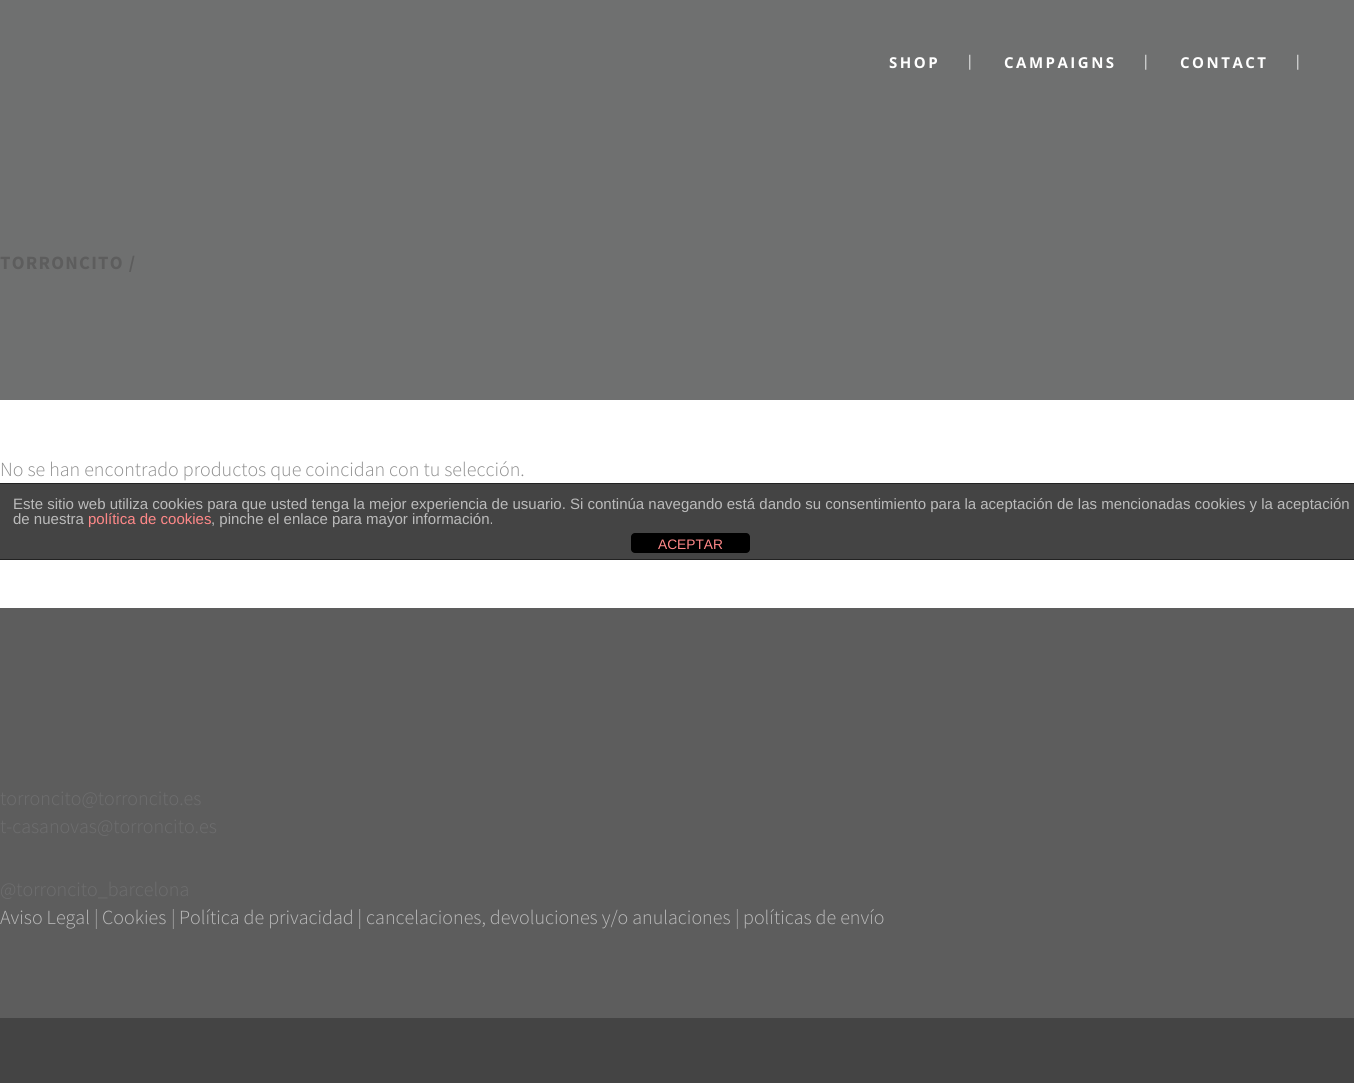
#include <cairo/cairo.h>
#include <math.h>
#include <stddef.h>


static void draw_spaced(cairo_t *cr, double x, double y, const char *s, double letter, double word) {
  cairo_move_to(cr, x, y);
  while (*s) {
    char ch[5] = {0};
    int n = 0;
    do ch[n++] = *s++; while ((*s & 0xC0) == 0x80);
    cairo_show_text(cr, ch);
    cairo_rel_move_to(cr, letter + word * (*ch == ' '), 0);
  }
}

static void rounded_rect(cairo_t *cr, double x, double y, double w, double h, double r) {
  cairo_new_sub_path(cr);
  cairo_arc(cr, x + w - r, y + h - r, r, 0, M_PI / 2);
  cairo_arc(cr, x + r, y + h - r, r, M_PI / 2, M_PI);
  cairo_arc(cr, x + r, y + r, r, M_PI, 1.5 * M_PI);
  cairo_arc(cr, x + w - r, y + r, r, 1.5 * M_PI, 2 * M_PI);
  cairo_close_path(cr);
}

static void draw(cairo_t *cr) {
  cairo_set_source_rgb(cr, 1, 1, 1);
  cairo_paint(cr);
  cairo_set_source_rgb(cr, 111 / 255.0, 112 / 255.0, 112 / 255.0);
  cairo_rectangle(cr, 0, 0, 1354, 400);
  cairo_fill(cr);
  cairo_set_source_rgb(cr, 93 / 255.0, 93 / 255.0, 93 / 255.0);
  cairo_rectangle(cr, 0, 608, 1354, 410);
  cairo_fill(cr);
  cairo_set_source_rgb(cr, 68 / 255.0, 68 / 255.0, 68 / 255.0);
  cairo_rectangle(cr, 0, 1018, 1354, 65);
  cairo_fill(cr);
  cairo_rectangle(cr, 0, 484, 1354, 75);
  cairo_fill(cr);
  cairo_set_source_rgb(cr, 34 / 255.0, 34 / 255.0, 34 / 255.0);
  cairo_rectangle(cr, 0, 483, 1354, 1);
  cairo_fill(cr);
  cairo_rectangle(cr, 0, 559, 1354, 1);
  cairo_fill(cr);
  cairo_set_source_rgb(cr, 0, 0, 0);
  rounded_rect(cr, 631, 533, 119, 20, 4);
  cairo_fill(cr);
  cairo_select_font_face(cr, "Open Sans", CAIRO_FONT_SLANT_NORMAL, CAIRO_FONT_WEIGHT_BOLD);
  cairo_set_font_size(cr, 15);
  cairo_set_source_rgb(cr, 1, 1, 1);
  draw_spaced(cr, 889, 68, "SHOP", 2.5, 0);
  cairo_select_font_face(cr, "Source Sans Pro", CAIRO_FONT_SLANT_NORMAL, CAIRO_FONT_WEIGHT_NORMAL);
  cairo_move_to(cr, 968, 66);
  cairo_show_text(cr, "|");
  cairo_select_font_face(cr, "Open Sans", CAIRO_FONT_SLANT_NORMAL, CAIRO_FONT_WEIGHT_BOLD);
  draw_spaced(cr, 1004, 68, "CAMPAIGNS", 2.5, 0);
  cairo_select_font_face(cr, "Source Sans Pro", CAIRO_FONT_SLANT_NORMAL, CAIRO_FONT_WEIGHT_NORMAL);
  cairo_move_to(cr, 1144, 66);
  cairo_show_text(cr, "|");
  cairo_select_font_face(cr, "Open Sans", CAIRO_FONT_SLANT_NORMAL, CAIRO_FONT_WEIGHT_BOLD);
  draw_spaced(cr, 1180, 68, "CONTACT", 2.5, 0);
  cairo_select_font_face(cr, "Source Sans Pro", CAIRO_FONT_SLANT_NORMAL, CAIRO_FONT_WEIGHT_NORMAL);
  cairo_move_to(cr, 1296, 66);
  cairo_show_text(cr, "|");
  cairo_select_font_face(cr, "Source Sans Pro", CAIRO_FONT_SLANT_NORMAL, CAIRO_FONT_WEIGHT_BOLD);
  cairo_set_font_size(cr, 18.75);
  cairo_set_source_rgb(cr, 93 / 255.0, 93 / 255.0, 93 / 255.0);
  draw_spaced(cr, 0, 269, "TORRONCITO /", 1.25, 0);
  cairo_select_font_face(cr, "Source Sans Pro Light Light", CAIRO_FONT_SLANT_NORMAL, CAIRO_FONT_WEIGHT_NORMAL);
  cairo_set_font_size(cr, 20);
  cairo_set_source_rgb(cr, 141 / 255.0, 141 / 255.0, 141 / 255.0);
  cairo_move_to(cr, 0, 476);
  cairo_show_text(cr, "No se han encontrado productos que coincidan con tu selección.");
  cairo_set_source_rgb(cr, 110 / 255.0, 110 / 255.0, 111 / 255.0);
  cairo_move_to(cr, 0, 805);
  cairo_show_text(cr, "torroncito@torroncito.es");
  cairo_move_to(cr, 0, 833);
  cairo_show_text(cr, "t-casanovas@torroncito.es");
  cairo_move_to(cr, 0, 896);
  cairo_show_text(cr, "@torroncito_barcelona");
  cairo_set_source_rgb(cr, 187 / 255.0, 187 / 255.0, 187 / 255.0);
  cairo_move_to(cr, 0, 924);
  cairo_show_text(cr, "Aviso Legal");
  cairo_set_source_rgb(cr, 172 / 255.0, 172 / 255.0, 172 / 255.0);
  cairo_move_to(cr, 94, 924);
  cairo_show_text(cr, "|");
  cairo_set_source_rgb(cr, 187 / 255.0, 187 / 255.0, 187 / 255.0);
  cairo_move_to(cr, 102, 924);
  cairo_show_text(cr, "Cookies");
  cairo_set_source_rgb(cr, 172 / 255.0, 172 / 255.0, 172 / 255.0);
  cairo_move_to(cr, 171, 924);
  cairo_show_text(cr, "|");
  cairo_set_source_rgb(cr, 187 / 255.0, 187 / 255.0, 187 / 255.0);
  cairo_move_to(cr, 179, 924);
  cairo_show_text(cr, "Política de privacidad | cancelaciones, devoluciones y/o anulaciones");
  cairo_set_source_rgb(cr, 172 / 255.0, 172 / 255.0, 172 / 255.0);
  cairo_move_to(cr, 735, 924);
  cairo_show_text(cr, "|");
  cairo_set_source_rgb(cr, 187 / 255.0, 187 / 255.0, 187 / 255.0);
  cairo_move_to(cr, 743, 924);
  cairo_show_text(cr, "políticas de envío");
  cairo_select_font_face(cr, "Liberation Sans", CAIRO_FONT_SLANT_NORMAL, CAIRO_FONT_WEIGHT_NORMAL);
  cairo_set_font_size(cr, 15);
  cairo_move_to(cr, 13, 509);
  cairo_show_text(cr, "Este sitio web utiliza cookies para que usted tenga la mejor experiencia de usuario. Si continúa navegando está dando su consentimiento para la aceptación de las mencionadas cookies y la aceptación");
  cairo_move_to(cr, 13, 524);
  cairo_show_text(cr, "de nuestra");
  cairo_set_source_rgb(cr, 1, 136 / 255.0, 136 / 255.0);
  cairo_move_to(cr, 88, 524);
  cairo_show_text(cr, "política de cookies");
  cairo_set_source_rgb(cr, 187 / 255.0, 187 / 255.0, 187 / 255.0);
  cairo_move_to(cr, 211, 524);
  cairo_show_text(cr, ", pinche el enlace para mayor información.");
  cairo_set_font_size(cr, 13.75);
  cairo_set_source_rgb(cr, 1, 136 / 255.0, 136 / 255.0);
  cairo_move_to(cr, 658, 549);
  cairo_show_text(cr, "ACEPTAR");
}

int main(void) {
  cairo_surface_t *surface = cairo_image_surface_create(CAIRO_FORMAT_RGB24, 1354, 1083);
  cairo_t *cr = cairo_create(surface);
  cairo_font_options_t *options = cairo_font_options_create();
  cairo_font_options_set_hint_metrics(options, CAIRO_HINT_METRICS_OFF);
  cairo_font_options_set_hint_style(options, CAIRO_HINT_STYLE_NONE);
  cairo_set_font_options(cr, options);
  cairo_set_miter_limit(cr, 4);
  draw(cr);
  cairo_surface_write_to_png(surface, "out.png");
  cairo_font_options_destroy(options);
  cairo_destroy(cr);
  cairo_surface_destroy(surface);
  return 0;
}
